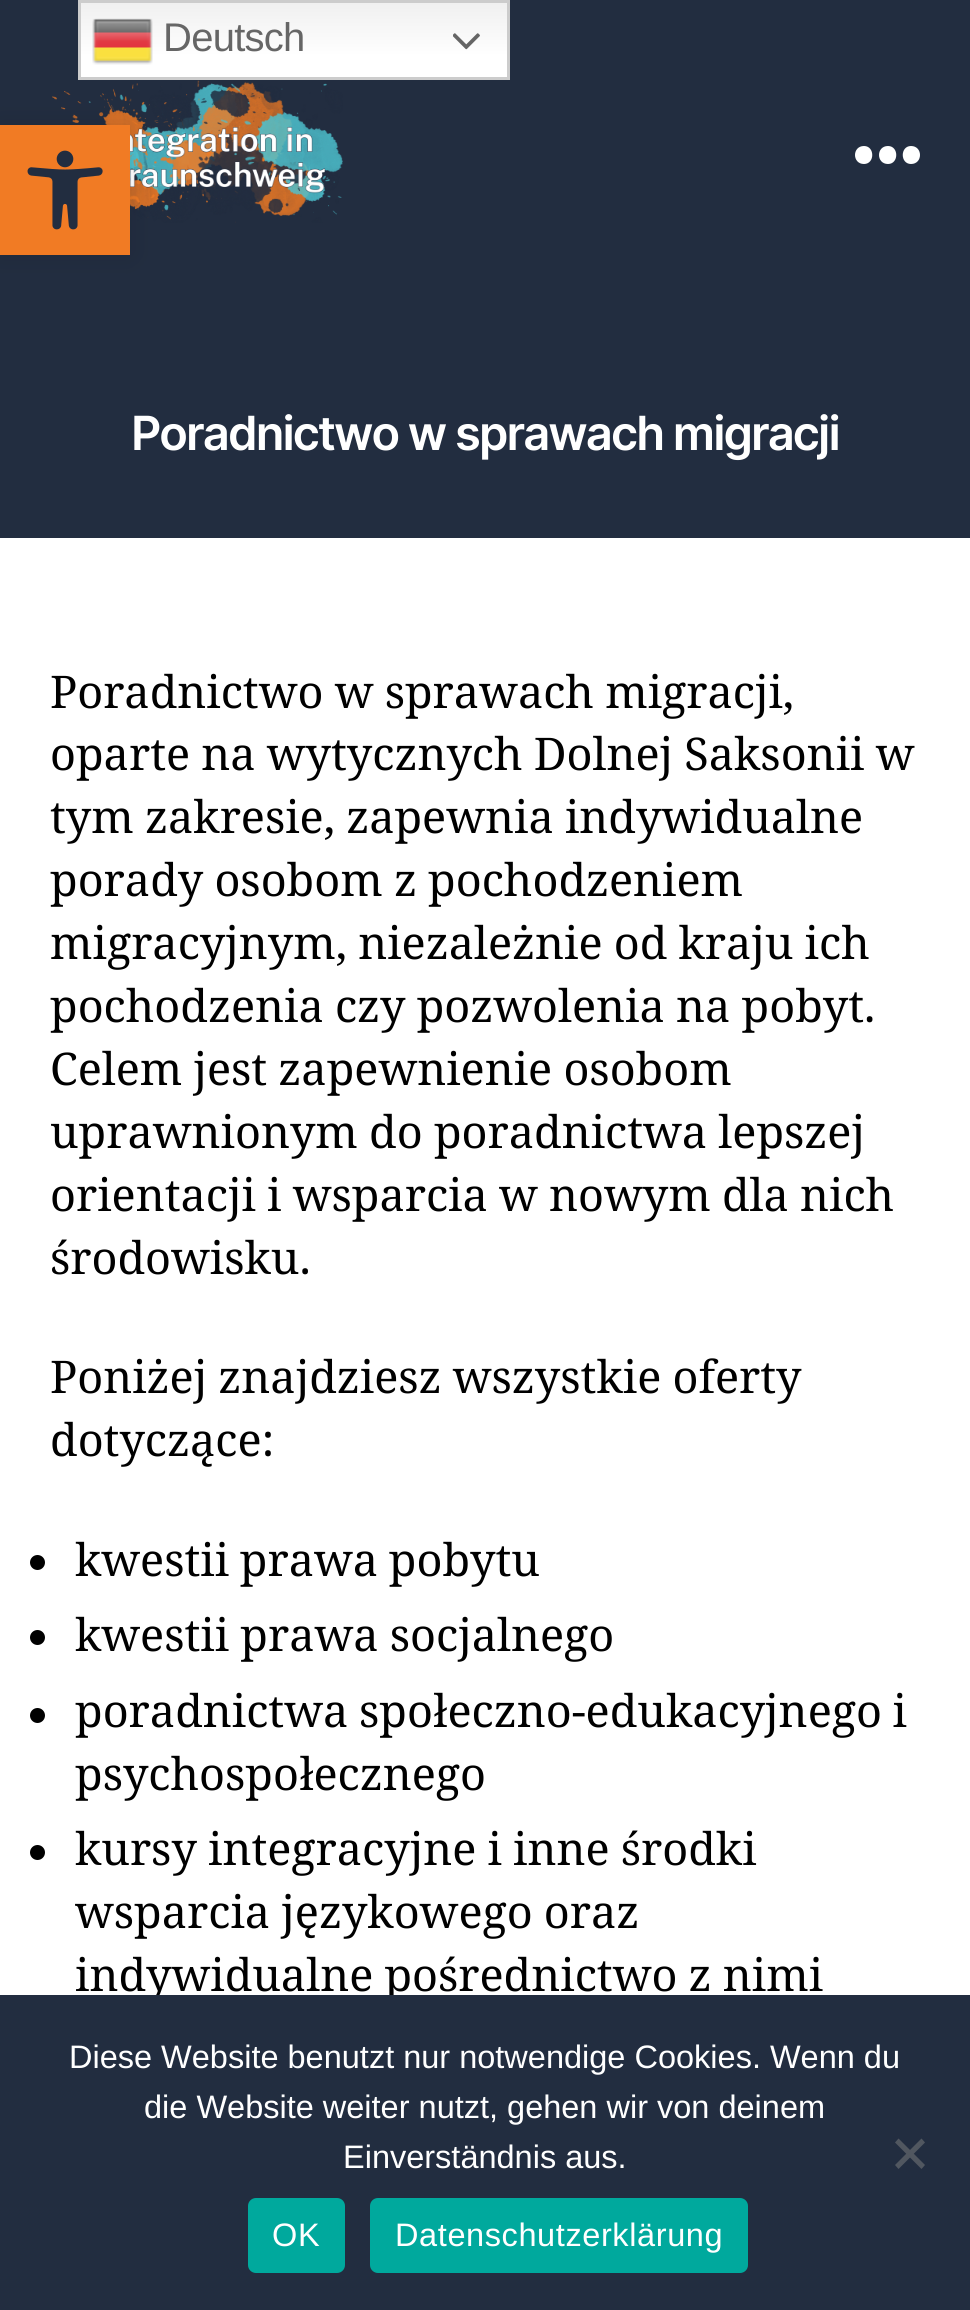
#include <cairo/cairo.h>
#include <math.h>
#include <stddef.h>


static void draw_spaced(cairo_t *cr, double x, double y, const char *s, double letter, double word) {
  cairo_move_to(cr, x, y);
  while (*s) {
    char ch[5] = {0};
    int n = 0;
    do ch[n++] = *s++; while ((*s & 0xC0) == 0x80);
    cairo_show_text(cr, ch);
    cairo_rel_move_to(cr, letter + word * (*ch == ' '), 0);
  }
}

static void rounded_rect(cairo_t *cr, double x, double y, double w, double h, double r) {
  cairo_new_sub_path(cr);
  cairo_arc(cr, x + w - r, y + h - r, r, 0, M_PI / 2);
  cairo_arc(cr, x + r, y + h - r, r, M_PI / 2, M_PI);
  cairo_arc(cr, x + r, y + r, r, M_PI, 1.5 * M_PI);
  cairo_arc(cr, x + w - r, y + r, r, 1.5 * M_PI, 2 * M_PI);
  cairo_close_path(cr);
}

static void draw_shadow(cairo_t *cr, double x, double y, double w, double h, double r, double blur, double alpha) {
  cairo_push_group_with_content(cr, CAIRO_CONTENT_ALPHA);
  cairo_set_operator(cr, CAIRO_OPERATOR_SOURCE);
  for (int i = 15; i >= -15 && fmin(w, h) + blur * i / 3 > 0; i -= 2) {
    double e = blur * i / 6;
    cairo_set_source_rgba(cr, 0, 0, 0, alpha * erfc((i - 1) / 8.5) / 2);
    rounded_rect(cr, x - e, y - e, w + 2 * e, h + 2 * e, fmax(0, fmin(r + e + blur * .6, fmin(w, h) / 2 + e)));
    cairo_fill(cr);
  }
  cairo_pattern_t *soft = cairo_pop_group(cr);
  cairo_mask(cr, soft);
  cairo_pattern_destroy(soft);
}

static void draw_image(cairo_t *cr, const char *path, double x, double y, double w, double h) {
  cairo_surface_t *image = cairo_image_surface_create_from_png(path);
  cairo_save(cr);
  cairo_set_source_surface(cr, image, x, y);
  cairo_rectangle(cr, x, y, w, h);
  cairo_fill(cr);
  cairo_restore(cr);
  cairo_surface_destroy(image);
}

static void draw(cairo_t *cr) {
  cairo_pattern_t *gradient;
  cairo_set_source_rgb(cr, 1, 1, 1);
  cairo_paint(cr);
  cairo_set_source_rgb(cr, 34 / 255.0, 45 / 255.0, 64 / 255.0);
  cairo_rectangle(cr, 0, 0, 970, 538);
  cairo_fill(cr);
  gradient = cairo_pattern_create_linear(294, 0, 294, 80);
  cairo_pattern_add_color_stop_rgba(gradient, 0, 239 / 255.0, 239 / 255.0, 239 / 255.0, 1);
  cairo_pattern_add_color_stop_rgba(gradient, 0.7, 1, 1, 1, 1);
  cairo_set_source(cr, gradient);
  cairo_pattern_destroy(gradient);
  cairo_rectangle(cr, 81, 3, 426, 74);
  cairo_fill(cr);
  cairo_rectangle(cr, 79.5, 1.5, 429, 77);
  cairo_set_source_rgb(cr, 204 / 255.0, 204 / 255.0, 204 / 255.0);
  cairo_set_line_width(cr, 3);
  cairo_stroke(cr);
  draw_image(cr, "images/1.png", 92, 18, 61, 47);
  draw_image(cr, "images/2.png", 453, 33, 27, 17);
  draw_image(cr, "images/3.png", 52, 80, 291, 143);
  cairo_set_source_rgb(cr, 1, 1, 1);
  cairo_set_fill_rule(cr, CAIRO_FILL_RULE_EVEN_ODD);
  cairo_new_path(cr);
  cairo_move_to(cr, 864, 164);
  cairo_curve_to(cr, 852, 164, 852, 146, 864, 146);
  cairo_curve_to(cr, 875, 146, 875, 164, 864, 164);
  cairo_close_path(cr);
  cairo_move_to(cr, 888, 164);
  cairo_curve_to(cr, 876, 164, 876, 146, 888, 146);
  cairo_curve_to(cr, 899, 146, 899, 164, 888, 164);
  cairo_close_path(cr);
  cairo_move_to(cr, 911, 164);
  cairo_curve_to(cr, 900, 164, 900, 146, 911, 146);
  cairo_curve_to(cr, 923, 146, 923, 164, 911, 164);
  cairo_close_path(cr);
  cairo_fill(cr);
  cairo_set_source_rgb(cr, 0, 0, 0);
  draw_shadow(cr, 0, 125, 130, 130, 0, 12.5, 0.1);
  cairo_set_source_rgb(cr, 241 / 255.0, 123 / 255.0, 36 / 255.0);
  cairo_rectangle(cr, 0, 125, 130, 130);
  cairo_fill(cr);
  draw_image(cr, "images/4.png", 27, 150, 76, 80);
  cairo_set_source_rgb(cr, 0, 0, 0);
  cairo_arc(cr, 37.5, 1562.5, 7.5, 0, 2 * M_PI);
  cairo_fill(cr);
  cairo_arc(cr, 37.5, 1637.5, 7.5, 0, 2 * M_PI);
  cairo_fill(cr);
  cairo_arc(cr, 37.5, 1715.5, 7.5, 0, 2 * M_PI);
  cairo_fill(cr);
  cairo_arc(cr, 37.5, 1852.5, 7.5, 0, 2 * M_PI);
  cairo_fill(cr);
  cairo_select_font_face(cr, "Liberation Sans", CAIRO_FONT_SLANT_NORMAL, CAIRO_FONT_WEIGHT_NORMAL);
  cairo_set_font_size(cr, 40);
  cairo_set_source_rgb(cr, 102 / 255.0, 102 / 255.0, 102 / 255.0);
  draw_spaced(cr, 163, 51, "Deutsch", -0.75, 0);
  cairo_select_font_face(cr, "Inter SemiBold", CAIRO_FONT_SLANT_NORMAL, CAIRO_FONT_WEIGHT_NORMAL);
  cairo_set_font_size(cr, 47.1);
  cairo_set_source_rgb(cr, 1, 1, 1);
  draw_spaced(cr, 131, 450, "Poradnictwo w sprawach migracji", -1.95, 0);
  cairo_select_font_face(cr, "Noto Serif", CAIRO_FONT_SLANT_NORMAL, CAIRO_FONT_WEIGHT_NORMAL);
  cairo_set_font_size(cr, 45);
  cairo_set_source_rgb(cr, 0, 0, 0);
  draw_spaced(cr, 50, 708, "Poradnictwo w sprawach migracji,", 0, -0.5);
  draw_spaced(cr, 50, 770, "oparte na wytycznych Dolnej Saksonii w", 0, -0.5);
  draw_spaced(cr, 50, 833, "tym zakresie, zapewnia indywidualne", 0, -0.5);
  draw_spaced(cr, 50, 896, "porady osobom z pochodzeniem", 0, -0.5);
  draw_spaced(cr, 50, 959, "migracyjnym, niezależnie od kraju ich", 0, -0.5);
  draw_spaced(cr, 50, 1022, "pochodzenia czy pozwolenia na pobyt.", 0, -0.5);
  draw_spaced(cr, 50, 1085, "Celem jest zapewnienie osobom", 0, -0.5);
  draw_spaced(cr, 50, 1148, "uprawnionym do poradnictwa lepszej", 0, -0.5);
  draw_spaced(cr, 50, 1211, "orientacji i wsparcia w nowym dla nich", 0, -0.5);
  cairo_move_to(cr, 50, 1274);
  cairo_show_text(cr, "środowisku.");
  draw_spaced(cr, 50, 1393, "Poniżej znajdziesz wszystkie oferty", 0, -0.5);
  cairo_move_to(cr, 50, 1456);
  cairo_show_text(cr, "dotyczące:");
  draw_spaced(cr, 75, 1576, "kwestii prawa pobytu", 0, -1);
  draw_spaced(cr, 75, 1651, "kwestii prawa socjalnego", 0, -0.5);
  draw_spaced(cr, 75, 1727, "poradnictwa społeczno-edukacyjnego i", 0, -1);
  cairo_move_to(cr, 75, 1790);
  cairo_show_text(cr, "psychospołecznego");
  draw_spaced(cr, 75, 1865, "kursy integracyjne i inne środki", 0, -0.5);
  draw_spaced(cr, 75, 1928, "wsparcia językowego oraz", 0, -0.5);
  draw_spaced(cr, 75, 1991, "indywidualne pośrednictwo z nimi", 0, -0.5);
  cairo_set_source_rgb(cr, 34 / 255.0, 45 / 255.0, 64 / 255.0);
  cairo_rectangle(cr, 0, 1995, 970, 315);
  cairo_fill(cr);
  cairo_select_font_face(cr, "Liberation Sans", CAIRO_FONT_SLANT_NORMAL, CAIRO_FONT_WEIGHT_NORMAL);
  cairo_set_font_size(cr, 32.5);
  cairo_set_source_rgb(cr, 1, 1, 1);
  cairo_move_to(cr, 69, 2068);
  cairo_show_text(cr, "Diese Website benutzt nur notwendige Cookies. Wenn du");
  cairo_move_to(cr, 144, 2118);
  cairo_show_text(cr, "die Website weiter nutzt, gehen wir von deinem");
  cairo_move_to(cr, 343, 2168);
  cairo_show_text(cr, "Einverständnis aus.");
  cairo_set_source_rgb(cr, 81 / 255.0, 87 / 255.0, 96 / 255.0);
  cairo_set_fill_rule(cr, CAIRO_FILL_RULE_WINDING);
  cairo_new_path(cr);
  cairo_move_to(cr, 921.5, 2138.5);
  cairo_line_to(cr, 925, 2142.5);
  cairo_line_to(cr, 898.5, 2169);
  cairo_line_to(cr, 895, 2165);
  cairo_close_path(cr);
  cairo_fill(cr);
  cairo_new_path(cr);
  cairo_move_to(cr, 895, 2142.5);
  cairo_line_to(cr, 898.5, 2138.5);
  cairo_line_to(cr, 925, 2165);
  cairo_line_to(cr, 921.5, 2169);
  cairo_close_path(cr);
  cairo_fill(cr);
  cairo_set_source_rgb(cr, 0, 169 / 255.0, 157 / 255.0);
  rounded_rect(cr, 248, 2198, 97, 75, 8);
  cairo_fill(cr);
  cairo_set_source_rgb(cr, 1, 1, 1);
  draw_spaced(cr, 272, 2246, "OK", 0.6, 0);
  cairo_set_source_rgb(cr, 0, 169 / 255.0, 157 / 255.0);
  rounded_rect(cr, 370, 2198, 378, 75, 8);
  cairo_fill(cr);
  cairo_set_source_rgb(cr, 1, 1, 1);
  draw_spaced(cr, 395, 2246, "Datenschutzerklärung", 0.6, 0);
}

int main(void) {
  cairo_surface_t *surface = cairo_image_surface_create(CAIRO_FORMAT_RGB24, 970, 2310);
  cairo_t *cr = cairo_create(surface);
  cairo_font_options_t *options = cairo_font_options_create();
  cairo_font_options_set_hint_metrics(options, CAIRO_HINT_METRICS_OFF);
  cairo_font_options_set_hint_style(options, CAIRO_HINT_STYLE_NONE);
  cairo_set_font_options(cr, options);
  cairo_set_miter_limit(cr, 4);
  draw(cr);
  cairo_surface_write_to_png(surface, "out.png");
  cairo_font_options_destroy(options);
  cairo_destroy(cr);
  cairo_surface_destroy(surface);
  return 0;
}
